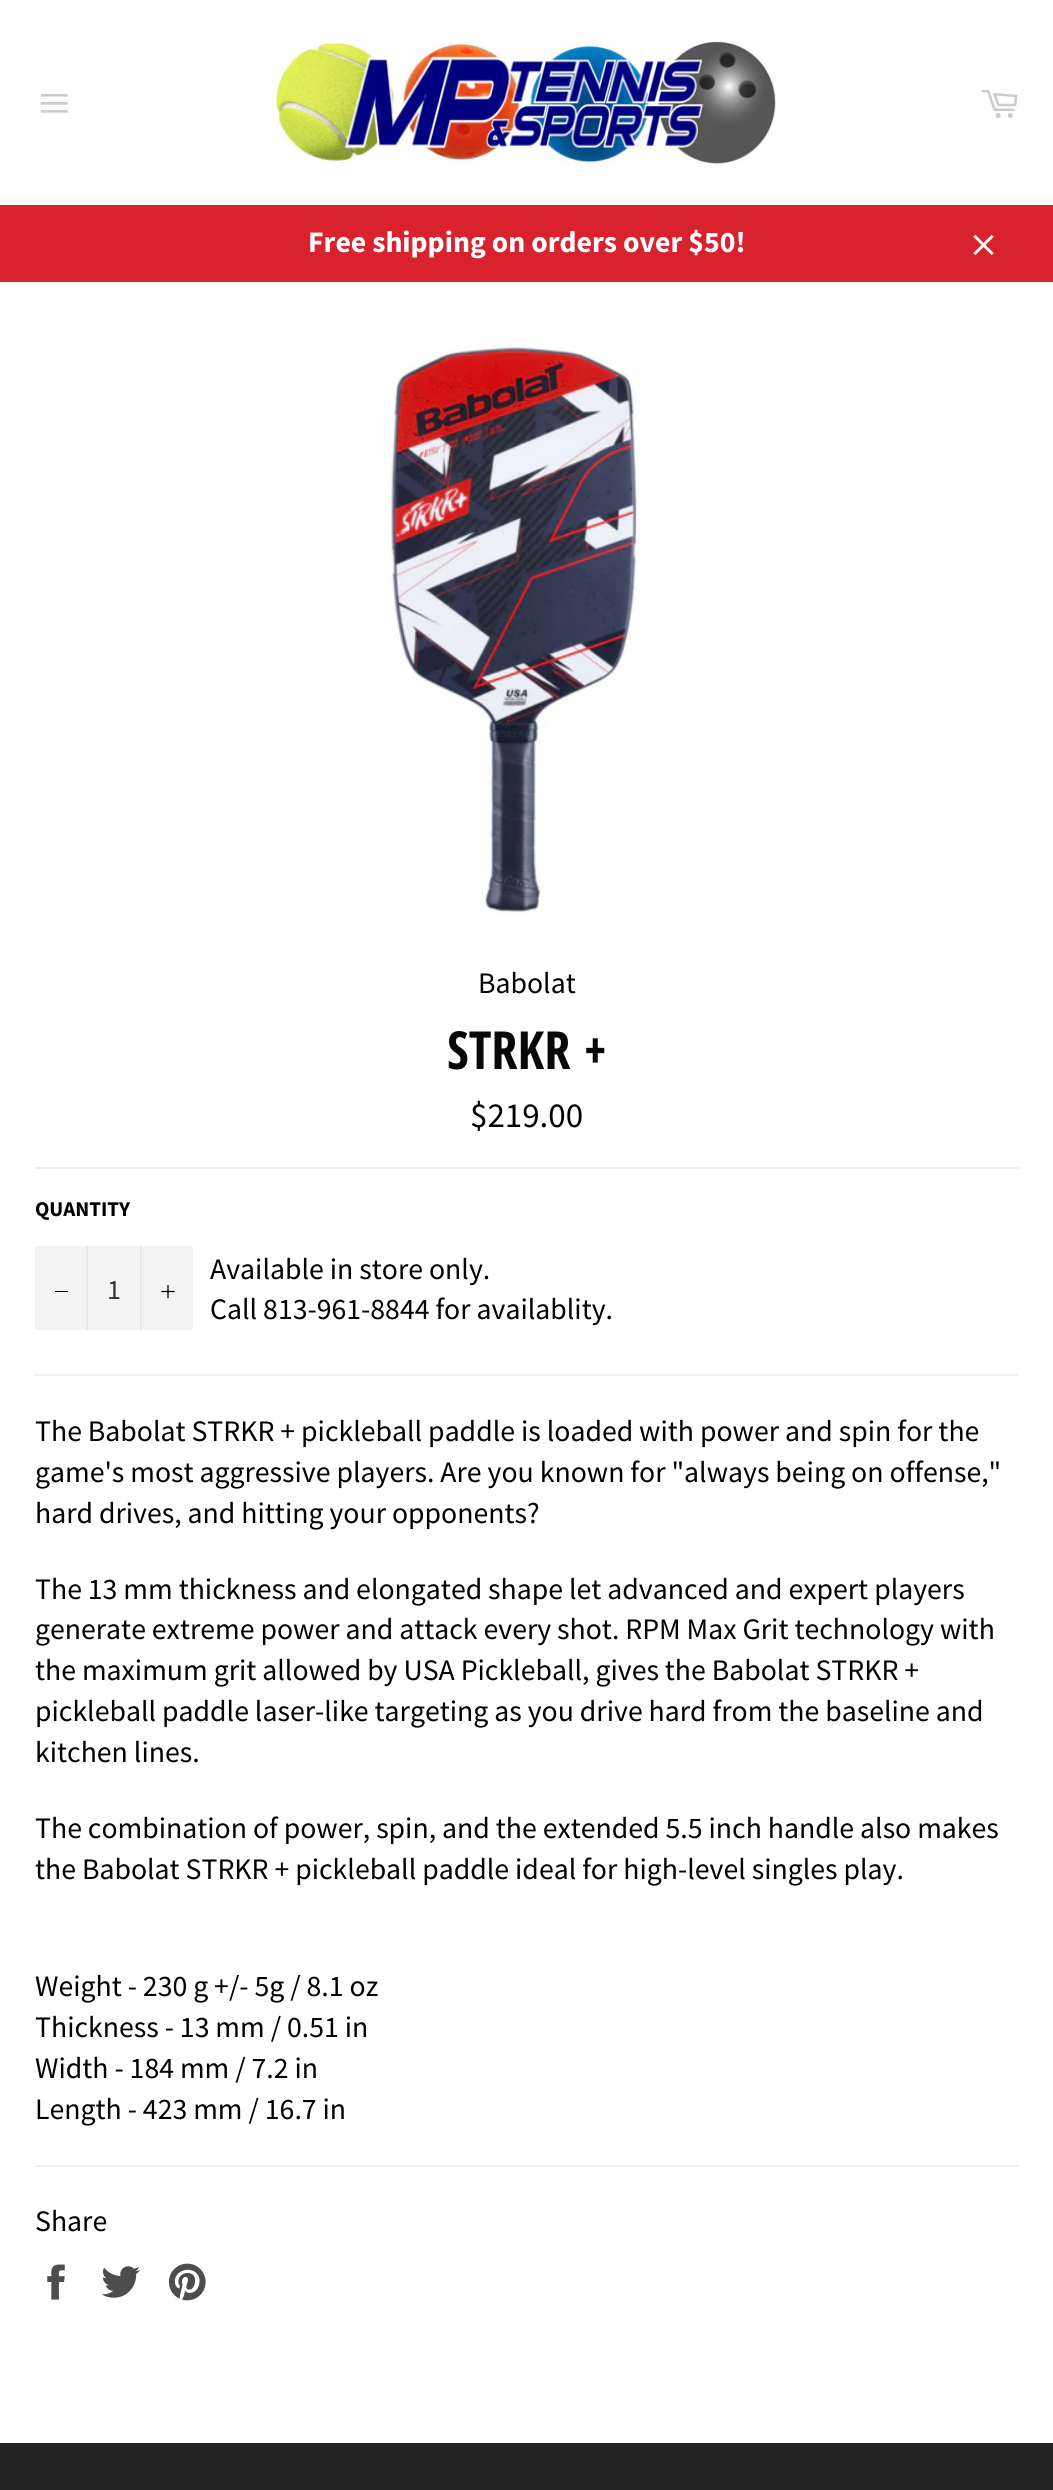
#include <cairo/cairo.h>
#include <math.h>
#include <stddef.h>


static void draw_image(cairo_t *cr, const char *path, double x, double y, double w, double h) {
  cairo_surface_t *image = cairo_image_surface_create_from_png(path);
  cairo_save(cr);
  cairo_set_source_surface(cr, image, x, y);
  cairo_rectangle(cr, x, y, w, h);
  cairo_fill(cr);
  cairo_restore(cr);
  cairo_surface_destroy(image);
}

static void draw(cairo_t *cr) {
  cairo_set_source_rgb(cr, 1, 1, 1);
  cairo_paint(cr);
  draw_image(cr, "images/1.png", 40, 94, 28, 19);
  draw_image(cr, "images/2.png", 273, 41, 503, 123);
  draw_image(cr, "images/3.png", 981, 90, 37, 29);
  cairo_set_source_rgb(cr, 216 / 255.0, 35 / 255.0, 47 / 255.0);
  cairo_rectangle(cr, 0, 205, 1053, 77);
  cairo_fill(cr);
  draw_image(cr, "images/4.png", 973, 234, 21, 22);
  draw_image(cr, "images/5.png", 388, 344, 250, 570);
  cairo_set_source_rgb(cr, 239 / 255.0, 239 / 255.0, 239 / 255.0);
  cairo_rectangle(cr, 35, 1167, 984, 2);
  cairo_fill(cr);
  cairo_set_source_rgb(cr, 244 / 255.0, 244 / 255.0, 244 / 255.0);
  cairo_rectangle(cr, 35, 1246, 158, 84);
  cairo_fill(cr);
  cairo_set_source_rgb(cr, 231 / 255.0, 231 / 255.0, 231 / 255.0);
  cairo_rectangle(cr, 86, 1246, 2, 84);
  cairo_fill(cr);
  cairo_set_source_rgb(cr, 0, 0, 0);
  cairo_rectangle(cr, 55, 1291, 13, 1);
  cairo_fill(cr);
  cairo_set_source_rgb(cr, 231 / 255.0, 231 / 255.0, 231 / 255.0);
  cairo_rectangle(cr, 140, 1246, 2, 84);
  cairo_fill(cr);
  draw_image(cr, "images/6.png", 161, 1285, 14, 14);
  cairo_set_source_rgb(cr, 239 / 255.0, 239 / 255.0, 239 / 255.0);
  cairo_rectangle(cr, 35, 1374, 984, 2);
  cairo_fill(cr);
  cairo_rectangle(cr, 35, 2165, 984, 2);
  cairo_fill(cr);
  draw_image(cr, "images/7.png", 47, 2264, 18, 36);
  draw_image(cr, "images/8.png", 101, 2266, 39, 32);
  draw_image(cr, "images/9.png", 168, 2263, 38, 38);
  cairo_set_source_rgb(cr, 34 / 255.0, 34 / 255.0, 34 / 255.0);
  cairo_rectangle(cr, 0, 2443, 1053, 47);
  cairo_fill(cr);
  cairo_select_font_face(cr, "Source Sans Pro", CAIRO_FONT_SLANT_NORMAL, CAIRO_FONT_WEIGHT_BOLD);
  cairo_set_font_size(cr, 29.75);
  cairo_set_source_rgb(cr, 1, 1, 1);
  cairo_move_to(cr, 308, 252);
  cairo_show_text(cr, "Free shipping on orders over $50!");
  cairo_select_font_face(cr, "Source Sans Pro", CAIRO_FONT_SLANT_NORMAL, CAIRO_FONT_WEIGHT_NORMAL);
  cairo_set_source_rgb(cr, 0, 0, 0);
  cairo_move_to(cr, 478, 993);
  cairo_show_text(cr, "Babolat");
  cairo_select_font_face(cr, "Open Sans Condensed", CAIRO_FONT_SLANT_NORMAL, CAIRO_FONT_WEIGHT_BOLD);
  cairo_set_font_size(cr, 52.5);
  cairo_set_source_rgb(cr, 8 / 255.0, 8 / 255.0, 8 / 255.0);
  cairo_move_to(cr, 447, 1069);
  cairo_show_text(cr, "STRKR +");
  cairo_select_font_face(cr, "Source Sans Pro", CAIRO_FONT_SLANT_NORMAL, CAIRO_FONT_WEIGHT_NORMAL);
  cairo_set_font_size(cr, 35);
  cairo_set_source_rgb(cr, 0, 0, 0);
  cairo_move_to(cr, 470, 1127);
  cairo_show_text(cr, "$219.00");
  cairo_select_font_face(cr, "Source Sans Pro", CAIRO_FONT_SLANT_NORMAL, CAIRO_FONT_WEIGHT_BOLD);
  cairo_set_font_size(cr, 21);
  cairo_move_to(cr, 35, 1216);
  cairo_show_text(cr, "QUANTITY");
  cairo_select_font_face(cr, "Source Sans Pro", CAIRO_FONT_SLANT_NORMAL, CAIRO_FONT_WEIGHT_NORMAL);
  cairo_set_font_size(cr, 28);
  cairo_set_source_rgb(cr, 51 / 255.0, 51 / 255.0, 51 / 255.0);
  cairo_move_to(cr, 107, 1299);
  cairo_show_text(cr, "1");
  cairo_set_font_size(cr, 29.75);
  cairo_set_source_rgb(cr, 0, 0, 0);
  cairo_move_to(cr, 210, 1279);
  cairo_show_text(cr, "Available in store only.");
  cairo_move_to(cr, 210, 1319);
  cairo_show_text(cr, "Call 813-961-8844 for availablity.");
  cairo_move_to(cr, 35, 1441);
  cairo_show_text(cr, "The Babolat STRKR + pickleball paddle is loaded with power and spin for the");
  cairo_move_to(cr, 35, 1482);
  cairo_show_text(cr, "game's most aggressive players. Are you known for \"always being on offense,\"");
  cairo_move_to(cr, 35, 1523);
  cairo_show_text(cr, "hard drives, and hitting your opponents?");
  cairo_move_to(cr, 35, 1599);
  cairo_show_text(cr, "The 13 mm thickness and elongated shape let advanced and expert players");
  cairo_move_to(cr, 35, 1639);
  cairo_show_text(cr, "generate extreme power and attack every shot. RPM Max Grit technology with");
  cairo_move_to(cr, 35, 1680);
  cairo_show_text(cr, "the maximum grit allowed by USA Pickleball, gives the Babolat STRKR +");
  cairo_move_to(cr, 35, 1721);
  cairo_show_text(cr, "pickleball paddle laser-like targeting as you drive hard from the baseline and");
  cairo_move_to(cr, 35, 1762);
  cairo_show_text(cr, "kitchen lines.");
  cairo_move_to(cr, 35, 1838);
  cairo_show_text(cr, "The combination of power, spin, and the extended 5.5 inch handle also makes");
  cairo_move_to(cr, 35, 1879);
  cairo_show_text(cr, "the Babolat STRKR + pickleball paddle ideal for high-level singles play.");
  cairo_move_to(cr, 35, 1996);
  cairo_show_text(cr, "Weight - 230 g +/- 5g / 8.1 oz");
  cairo_move_to(cr, 35, 2037);
  cairo_show_text(cr, "Thickness - 13 mm / 0.51 in");
  cairo_move_to(cr, 35, 2078);
  cairo_show_text(cr, "Width - 184 mm / 7.2 in");
  cairo_move_to(cr, 35, 2119);
  cairo_show_text(cr, "Length - 423 mm / 16.7 in");
  cairo_move_to(cr, 35, 2231);
  cairo_show_text(cr, "Share");
}

int main(void) {
  cairo_surface_t *surface = cairo_image_surface_create(CAIRO_FORMAT_RGB24, 1053, 2490);
  cairo_t *cr = cairo_create(surface);
  cairo_font_options_t *options = cairo_font_options_create();
  cairo_font_options_set_hint_metrics(options, CAIRO_HINT_METRICS_OFF);
  cairo_font_options_set_hint_style(options, CAIRO_HINT_STYLE_NONE);
  cairo_set_font_options(cr, options);
  cairo_set_miter_limit(cr, 4);
  draw(cr);
  cairo_surface_write_to_png(surface, "out.png");
  cairo_font_options_destroy(options);
  cairo_destroy(cr);
  cairo_surface_destroy(surface);
  return 0;
}
